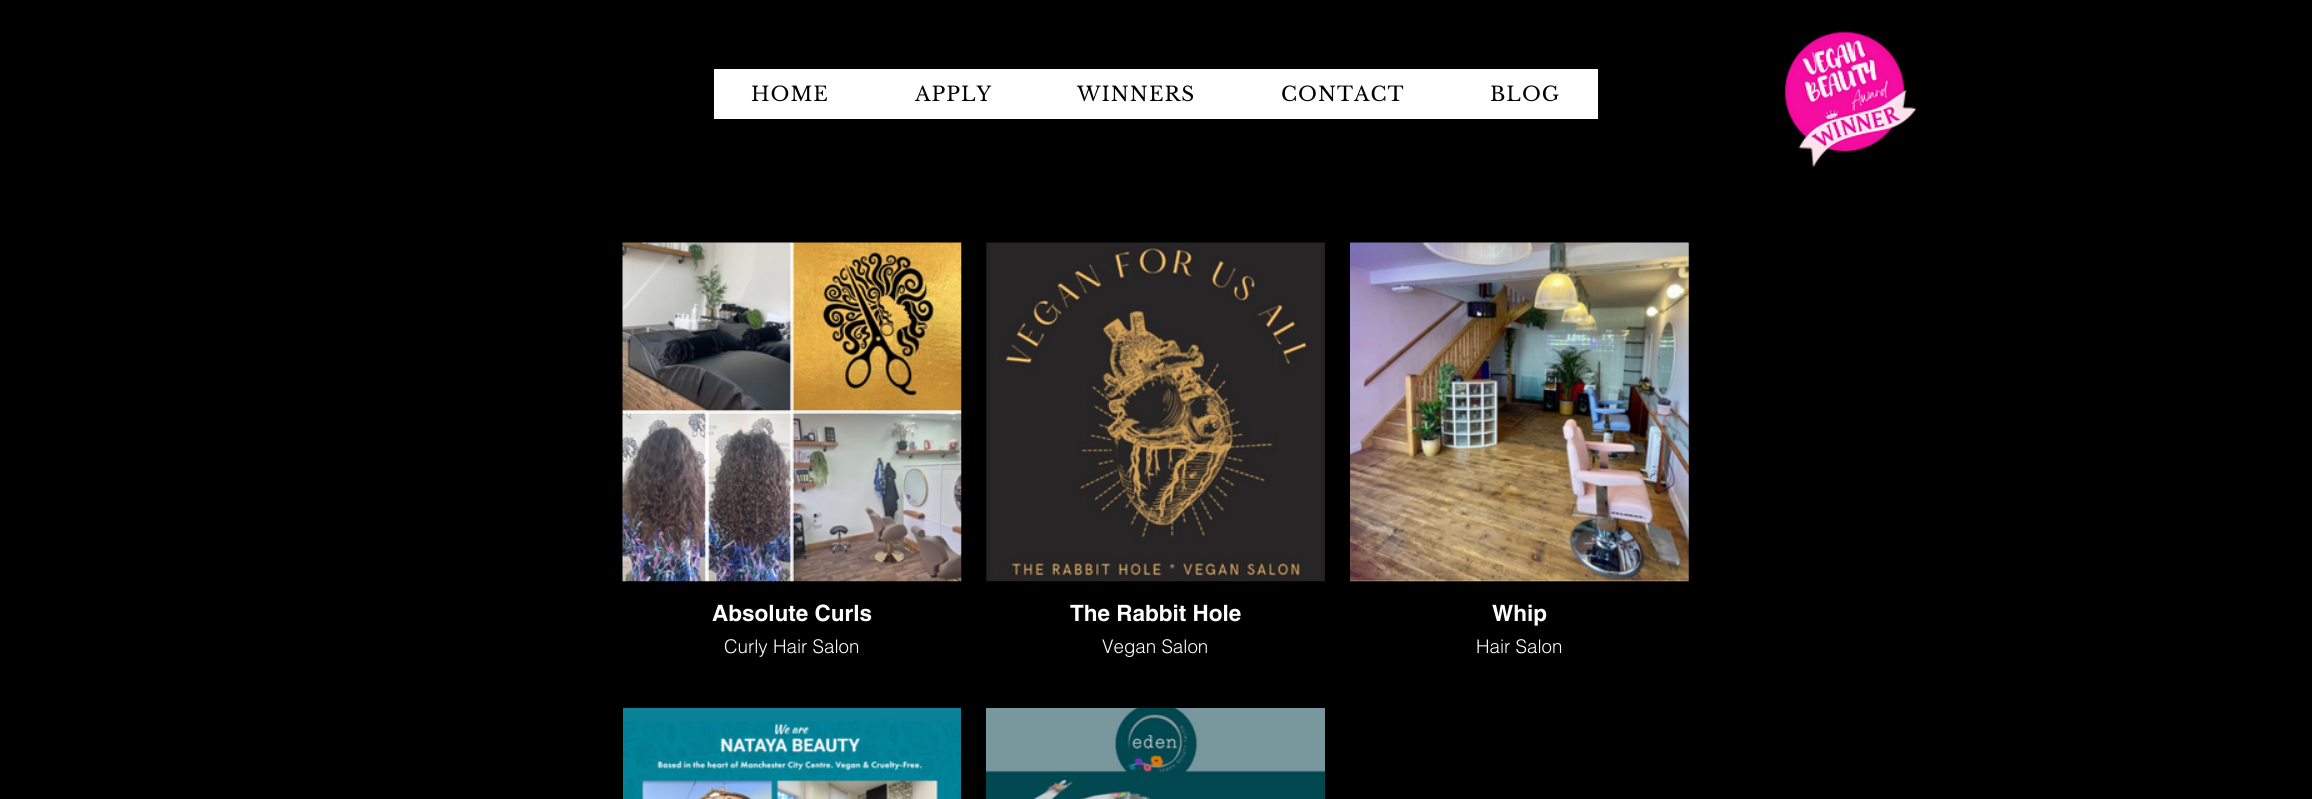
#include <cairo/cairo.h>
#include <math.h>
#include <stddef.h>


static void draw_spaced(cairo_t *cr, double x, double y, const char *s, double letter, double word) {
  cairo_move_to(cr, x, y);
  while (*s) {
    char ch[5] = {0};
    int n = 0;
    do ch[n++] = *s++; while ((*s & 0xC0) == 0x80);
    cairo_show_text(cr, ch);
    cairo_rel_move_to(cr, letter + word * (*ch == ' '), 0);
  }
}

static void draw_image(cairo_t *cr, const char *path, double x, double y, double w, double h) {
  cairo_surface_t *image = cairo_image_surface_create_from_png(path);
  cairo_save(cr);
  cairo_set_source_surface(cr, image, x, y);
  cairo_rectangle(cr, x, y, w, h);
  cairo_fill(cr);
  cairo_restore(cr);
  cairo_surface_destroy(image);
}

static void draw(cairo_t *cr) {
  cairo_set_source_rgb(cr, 0, 0, 0);
  cairo_paint(cr);
  cairo_set_source_rgb(cr, 1, 1, 1);
  cairo_rectangle(cr, 714, 69, 884, 50);
  cairo_fill(cr);
  draw_image(cr, "images/1.png", 1784, 31, 133, 137);
  draw_image(cr, "images/2.png", 622, 242, 340, 340);
  draw_image(cr, "images/3.png", 986, 242, 339, 340);
  draw_image(cr, "images/4.png", 1350, 242, 339, 340);
  draw_image(cr, "images/5.png", 623, 708, 338, 91);
  draw_image(cr, "images/6.png", 986, 708, 339, 91);
  cairo_select_font_face(cr, "Libre Baskerville", CAIRO_FONT_SLANT_NORMAL, CAIRO_FONT_WEIGHT_NORMAL);
  cairo_set_font_size(cr, 20);
  cairo_set_source_rgb(cr, 0, 0, 0);
  draw_spaced(cr, 751, 101, "HOME", 1, 0);
  draw_spaced(cr, 915, 101, "APPLY", 1, 0);
  draw_spaced(cr, 1077, 101, "WINNERS", 1, 0);
  draw_spaced(cr, 1281, 101, "CONTACT", 1, 0);
  draw_spaced(cr, 1490, 101, "BLOG", 1, 0);
  cairo_select_font_face(cr, "helvetica", CAIRO_FONT_SLANT_NORMAL, CAIRO_FONT_WEIGHT_BOLD);
  cairo_set_font_size(cr, 22.5);
  cairo_set_source_rgb(cr, 1, 1, 1);
  cairo_move_to(cr, 712, 621);
  cairo_show_text(cr, "Absolute Curls");
  cairo_select_font_face(cr, "helvetica Light", CAIRO_FONT_SLANT_NORMAL, CAIRO_FONT_WEIGHT_NORMAL);
  cairo_set_font_size(cr, 18.75);
  cairo_move_to(cr, 724, 653);
  cairo_show_text(cr, "Curly Hair Salon");
  cairo_select_font_face(cr, "helvetica", CAIRO_FONT_SLANT_NORMAL, CAIRO_FONT_WEIGHT_BOLD);
  cairo_set_font_size(cr, 22.5);
  cairo_move_to(cr, 1070, 621);
  cairo_show_text(cr, "The Rabbit Hole");
  cairo_select_font_face(cr, "helvetica Light", CAIRO_FONT_SLANT_NORMAL, CAIRO_FONT_WEIGHT_NORMAL);
  cairo_set_font_size(cr, 18.75);
  cairo_move_to(cr, 1102, 653);
  cairo_show_text(cr, "Vegan Salon");
  cairo_select_font_face(cr, "helvetica", CAIRO_FONT_SLANT_NORMAL, CAIRO_FONT_WEIGHT_BOLD);
  cairo_set_font_size(cr, 22.5);
  cairo_move_to(cr, 1492, 621);
  cairo_show_text(cr, "Whip");
  cairo_select_font_face(cr, "helvetica Light", CAIRO_FONT_SLANT_NORMAL, CAIRO_FONT_WEIGHT_NORMAL);
  cairo_set_font_size(cr, 18.75);
  cairo_move_to(cr, 1476, 653);
  cairo_show_text(cr, "Hair Salon");
}

int main(void) {
  cairo_surface_t *surface = cairo_image_surface_create(CAIRO_FORMAT_RGB24, 2312, 799);
  cairo_t *cr = cairo_create(surface);
  cairo_font_options_t *options = cairo_font_options_create();
  cairo_font_options_set_hint_metrics(options, CAIRO_HINT_METRICS_OFF);
  cairo_font_options_set_hint_style(options, CAIRO_HINT_STYLE_NONE);
  cairo_set_font_options(cr, options);
  cairo_set_miter_limit(cr, 4);
  draw(cr);
  cairo_surface_write_to_png(surface, "out.png");
  cairo_font_options_destroy(options);
  cairo_destroy(cr);
  cairo_surface_destroy(surface);
  return 0;
}
